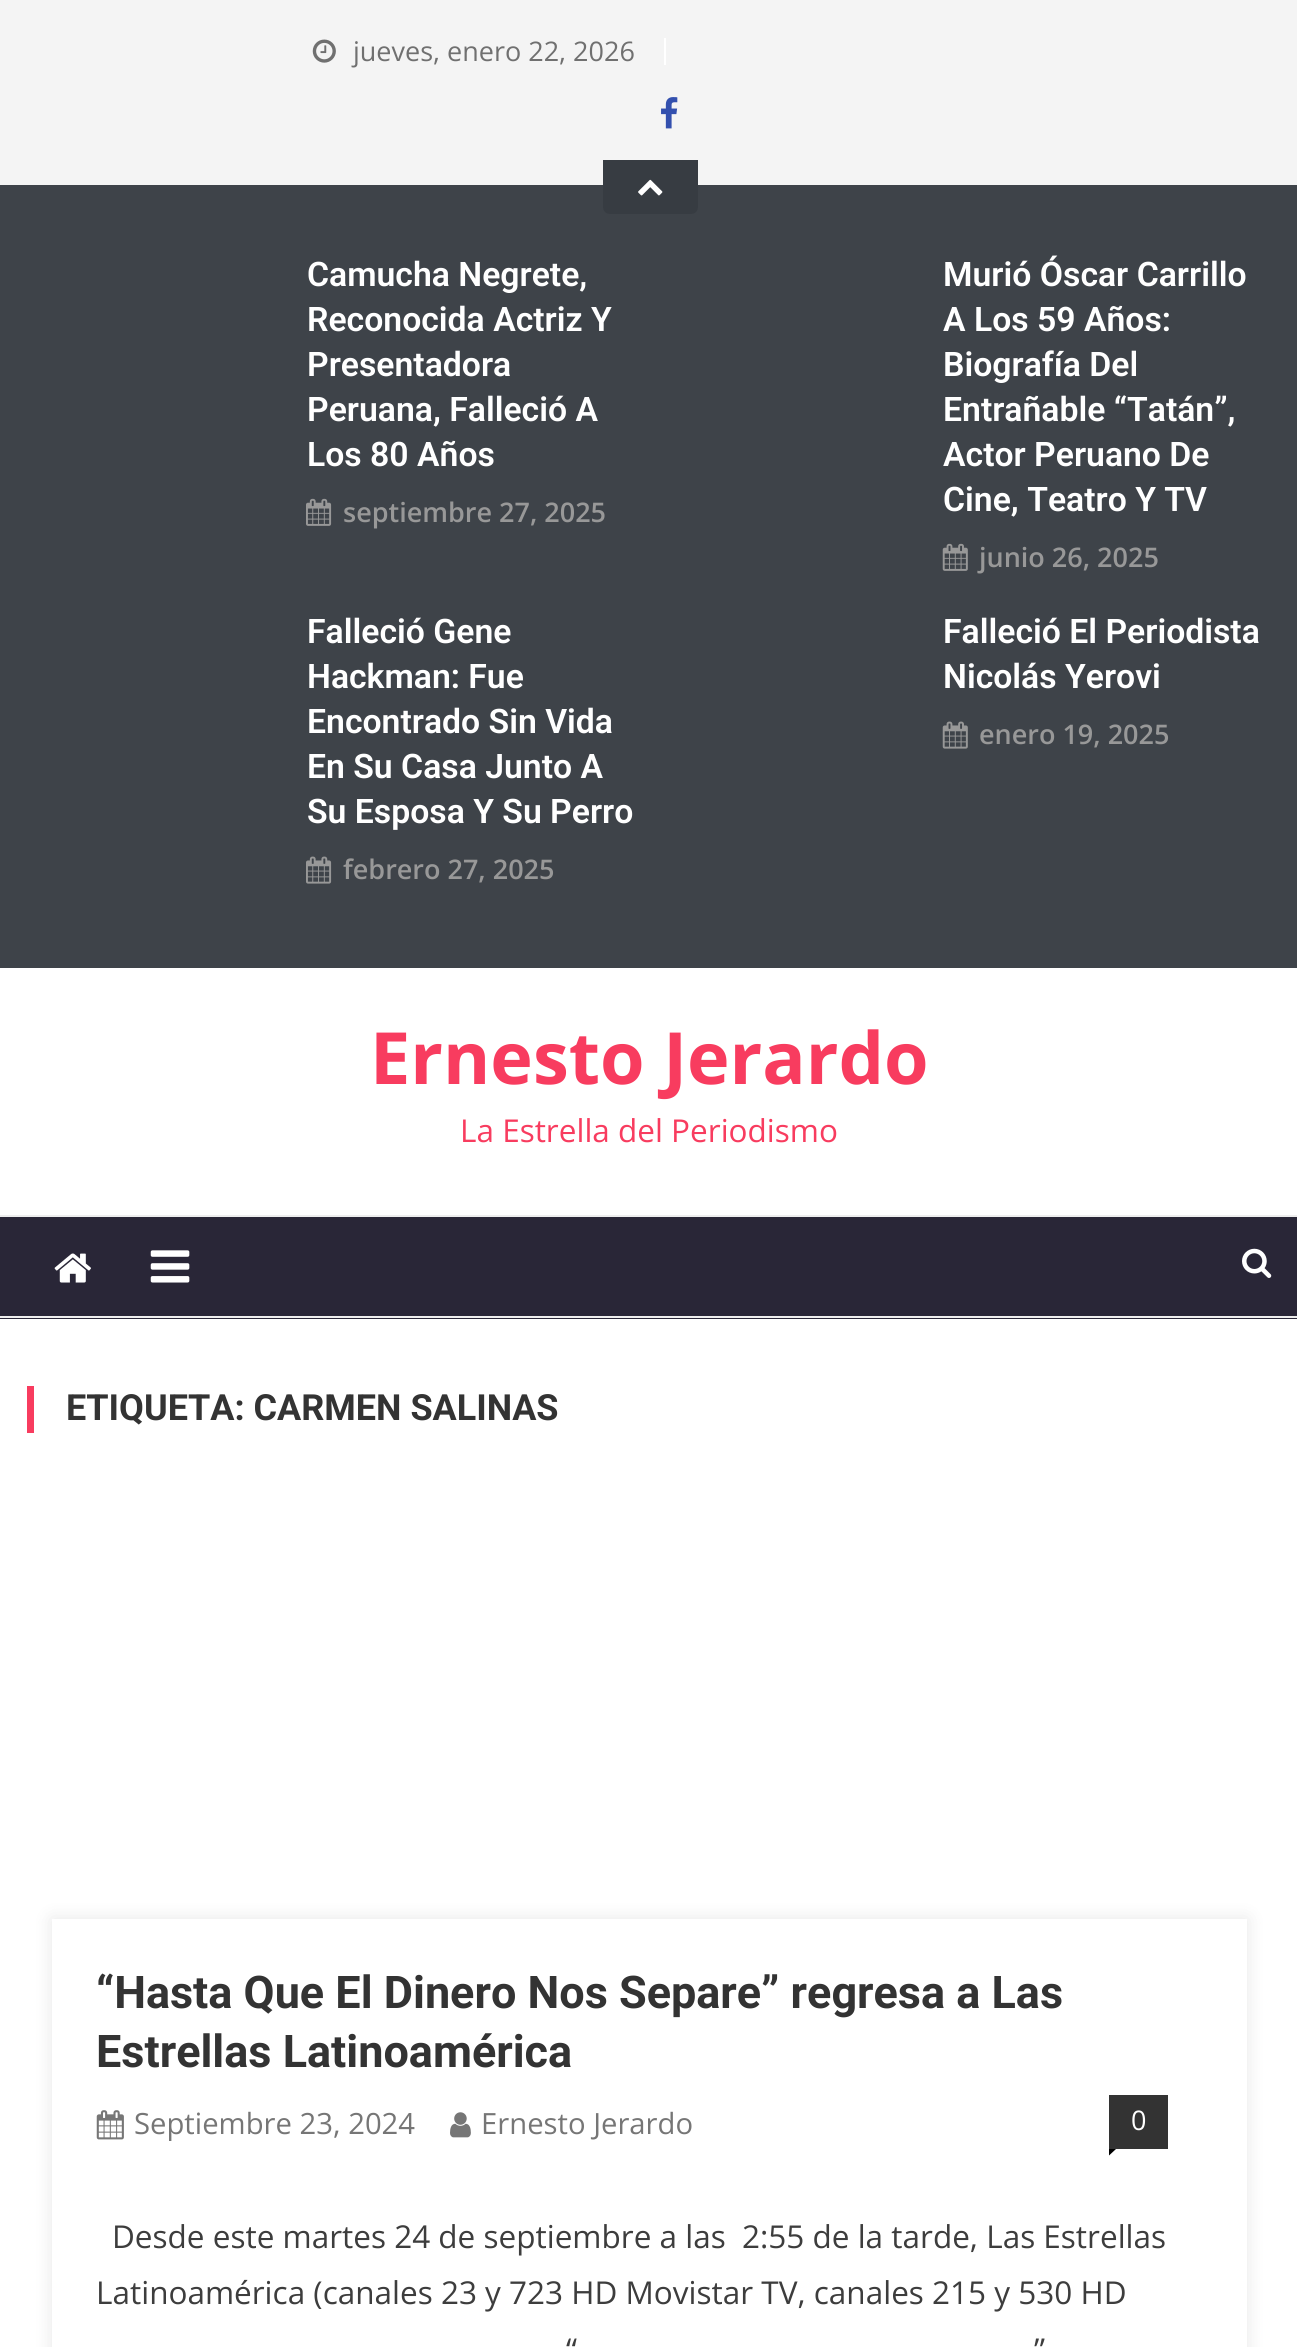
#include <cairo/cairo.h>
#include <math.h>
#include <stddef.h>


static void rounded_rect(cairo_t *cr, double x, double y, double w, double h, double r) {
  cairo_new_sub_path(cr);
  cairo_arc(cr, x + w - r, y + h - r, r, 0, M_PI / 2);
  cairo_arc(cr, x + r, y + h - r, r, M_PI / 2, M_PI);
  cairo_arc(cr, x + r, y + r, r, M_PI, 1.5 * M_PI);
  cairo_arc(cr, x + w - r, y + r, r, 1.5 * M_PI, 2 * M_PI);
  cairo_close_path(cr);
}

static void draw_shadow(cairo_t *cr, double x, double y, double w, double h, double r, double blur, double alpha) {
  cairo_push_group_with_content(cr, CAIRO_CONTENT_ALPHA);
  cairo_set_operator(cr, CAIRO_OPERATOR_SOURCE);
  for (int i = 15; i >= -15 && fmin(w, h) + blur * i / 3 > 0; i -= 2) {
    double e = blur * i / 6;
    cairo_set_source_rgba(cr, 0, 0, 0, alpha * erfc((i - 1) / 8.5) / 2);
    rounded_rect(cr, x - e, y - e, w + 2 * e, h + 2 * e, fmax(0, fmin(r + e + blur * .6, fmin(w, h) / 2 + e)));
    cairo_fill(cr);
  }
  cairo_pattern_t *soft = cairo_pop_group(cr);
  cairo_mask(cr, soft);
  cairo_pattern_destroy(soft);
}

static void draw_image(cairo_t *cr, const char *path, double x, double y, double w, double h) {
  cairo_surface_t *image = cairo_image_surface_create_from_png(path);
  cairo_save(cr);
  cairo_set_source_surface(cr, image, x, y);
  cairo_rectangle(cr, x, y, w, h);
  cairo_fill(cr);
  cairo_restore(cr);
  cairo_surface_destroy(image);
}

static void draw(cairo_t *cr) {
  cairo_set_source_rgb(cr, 1, 1, 1);
  cairo_paint(cr);
  cairo_set_source_rgb(cr, 244 / 255.0, 244 / 255.0, 244 / 255.0);
  cairo_rectangle(cr, 0, 0, 1297, 185);
  cairo_fill(cr);
  draw_image(cr, "images/1.png", 312, 39, 24, 24);
  cairo_set_source_rgb(cr, 1, 1, 1);
  cairo_rectangle(cr, 664, 38, 2, 27);
  cairo_fill(cr);
  draw_image(cr, "images/2.png", 661, 97, 17, 32);
  cairo_set_source_rgb(cr, 62 / 255.0, 67 / 255.0, 73 / 255.0);
  cairo_rectangle(cr, 0, 185, 1297, 783);
  cairo_fill(cr);
  cairo_set_source_rgb(cr, 55 / 255.0, 60 / 255.0, 66 / 255.0);
  cairo_new_path(cr);
  cairo_move_to(cr, 603, 160);
  cairo_line_to(cr, 698, 160);
  cairo_line_to(cr, 698, 207);
  cairo_curve_to(cr, 698, 211, 695, 214, 691, 214);
  cairo_line_to(cr, 610, 214);
  cairo_curve_to(cr, 606, 214, 603, 211, 603, 207);
  cairo_close_path(cr);
  cairo_fill(cr);
  draw_image(cr, "images/3.png", 638, 179, 25, 17);
  draw_image(cr, "images/4.png", 306, 498, 26, 28);
  draw_image(cr, "images/5.png", 942, 543, 26, 28);
  draw_image(cr, "images/6.png", 306, 856, 26, 28);
  draw_image(cr, "images/7.png", 942, 721, 26, 28);
  cairo_set_source_rgb(cr, 41 / 255.0, 38 / 255.0, 55 / 255.0);
  cairo_rectangle(cr, 0, 1217, 1297, 102);
  cairo_fill(cr);
  cairo_set_source_rgb(cr, 238 / 255.0, 238 / 255.0, 238 / 255.0);
  cairo_rectangle(cr, 0, 1215, 1297, 2);
  cairo_fill(cr);
  cairo_rectangle(cr, 0, 1316, 1297, 2);
  cairo_fill(cr);
  draw_image(cr, "images/8.png", 54, 1253, 37, 30);
  draw_image(cr, "images/9.png", 150, 1250, 40, 33);
  draw_image(cr, "images/10.png", 1242, 1248, 30, 30);
  cairo_set_source_rgb(cr, 248 / 255.0, 60 / 255.0, 95 / 255.0);
  cairo_rectangle(cr, 27, 1386, 7, 47);
  cairo_fill(cr);
  cairo_set_source_rgb(cr, 0, 0, 0);
  draw_shadow(cr, 52, 1919, 1195, 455, 0, 9, 0.1);
  cairo_set_source_rgb(cr, 1, 1, 1);
  cairo_rectangle(cr, 52, 1919, 1195, 428);
  cairo_fill(cr);
  draw_image(cr, "images/11.png", 96, 2110, 28, 30);
  draw_image(cr, "images/12.png", 450, 2112, 21, 26);
  cairo_set_source_rgb(cr, 51 / 255.0, 51 / 255.0, 51 / 255.0);
  cairo_rectangle(cr, 1109, 2095, 59, 54);
  cairo_fill(cr);
  cairo_set_source_rgb(cr, 0, 0, 0);
  cairo_new_path(cr);
  cairo_move_to(cr, 1109, 2149);
  cairo_line_to(cr, 1116, 2149);
  cairo_line_to(cr, 1109, 2155.5);
  cairo_close_path(cr);
  cairo_fill(cr);
  cairo_select_font_face(cr, "Open Sans", CAIRO_FONT_SLANT_NORMAL, CAIRO_FONT_WEIGHT_NORMAL);
  cairo_set_font_size(cr, 27);
  cairo_set_source_rgb(cr, 112 / 255.0, 112 / 255.0, 112 / 255.0);
  cairo_move_to(cr, 353, 61);
  cairo_show_text(cr, "jueves, enero 22, 2026");
  cairo_select_font_face(cr, "Roboto SemiBold", CAIRO_FONT_SLANT_NORMAL, CAIRO_FONT_WEIGHT_NORMAL);
  cairo_set_font_size(cr, 33.75);
  cairo_set_source_rgb(cr, 1, 1, 1);
  cairo_move_to(cr, 307, 286);
  cairo_show_text(cr, "Camucha Negrete,");
  cairo_move_to(cr, 307, 331);
  cairo_show_text(cr, "Reconocida Actriz Y");
  cairo_move_to(cr, 307, 376);
  cairo_show_text(cr, "Presentadora");
  cairo_move_to(cr, 307, 421);
  cairo_show_text(cr, "Peruana, Falleció A");
  cairo_move_to(cr, 307, 466);
  cairo_show_text(cr, "Los 80 Años");
  cairo_select_font_face(cr, "Open Sans SemiBold", CAIRO_FONT_SLANT_NORMAL, CAIRO_FONT_WEIGHT_NORMAL);
  cairo_set_font_size(cr, 27);
  cairo_set_source_rgb(cr, 152 / 255.0, 152 / 255.0, 152 / 255.0);
  cairo_move_to(cr, 343, 522);
  cairo_show_text(cr, "septiembre 27, 2025");
  cairo_select_font_face(cr, "Roboto SemiBold", CAIRO_FONT_SLANT_NORMAL, CAIRO_FONT_WEIGHT_NORMAL);
  cairo_set_font_size(cr, 33.75);
  cairo_set_source_rgb(cr, 1, 1, 1);
  cairo_move_to(cr, 943, 286);
  cairo_show_text(cr, "Murió Óscar Carrillo");
  cairo_move_to(cr, 943, 331);
  cairo_show_text(cr, "A Los 59 Años:");
  cairo_move_to(cr, 943, 376);
  cairo_show_text(cr, "Biografía Del");
  cairo_move_to(cr, 943, 421);
  cairo_show_text(cr, "Entrañable “Tatán”,");
  cairo_move_to(cr, 943, 466);
  cairo_show_text(cr, "Actor Peruano De");
  cairo_move_to(cr, 943, 511);
  cairo_show_text(cr, "Cine, Teatro Y TV");
  cairo_select_font_face(cr, "Open Sans SemiBold", CAIRO_FONT_SLANT_NORMAL, CAIRO_FONT_WEIGHT_NORMAL);
  cairo_set_font_size(cr, 27);
  cairo_set_source_rgb(cr, 152 / 255.0, 152 / 255.0, 152 / 255.0);
  cairo_move_to(cr, 979, 567);
  cairo_show_text(cr, "junio 26, 2025");
  cairo_select_font_face(cr, "Roboto SemiBold", CAIRO_FONT_SLANT_NORMAL, CAIRO_FONT_WEIGHT_NORMAL);
  cairo_set_font_size(cr, 33.75);
  cairo_set_source_rgb(cr, 1, 1, 1);
  cairo_move_to(cr, 307, 643);
  cairo_show_text(cr, "Falleció Gene");
  cairo_move_to(cr, 307, 688);
  cairo_show_text(cr, "Hackman: Fue");
  cairo_move_to(cr, 307, 733);
  cairo_show_text(cr, "Encontrado Sin Vida");
  cairo_move_to(cr, 307, 778);
  cairo_show_text(cr, "En Su Casa Junto A");
  cairo_move_to(cr, 307, 823);
  cairo_show_text(cr, "Su Esposa Y Su Perro");
  cairo_select_font_face(cr, "Open Sans SemiBold", CAIRO_FONT_SLANT_NORMAL, CAIRO_FONT_WEIGHT_NORMAL);
  cairo_set_font_size(cr, 27);
  cairo_set_source_rgb(cr, 152 / 255.0, 152 / 255.0, 152 / 255.0);
  cairo_move_to(cr, 343, 879);
  cairo_show_text(cr, "febrero 27, 2025");
  cairo_select_font_face(cr, "Roboto SemiBold", CAIRO_FONT_SLANT_NORMAL, CAIRO_FONT_WEIGHT_NORMAL);
  cairo_set_font_size(cr, 33.75);
  cairo_set_source_rgb(cr, 1, 1, 1);
  cairo_move_to(cr, 943, 643);
  cairo_show_text(cr, "Falleció El Periodista");
  cairo_move_to(cr, 943, 688);
  cairo_show_text(cr, "Nicolás Yerovi");
  cairo_select_font_face(cr, "Open Sans SemiBold", CAIRO_FONT_SLANT_NORMAL, CAIRO_FONT_WEIGHT_NORMAL);
  cairo_set_font_size(cr, 27);
  cairo_set_source_rgb(cr, 152 / 255.0, 152 / 255.0, 152 / 255.0);
  cairo_move_to(cr, 979, 744);
  cairo_show_text(cr, "enero 19, 2025");
  cairo_select_font_face(cr, "Open Sans", CAIRO_FONT_SLANT_NORMAL, CAIRO_FONT_WEIGHT_BOLD);
  cairo_set_font_size(cr, 72);
  cairo_set_source_rgb(cr, 248 / 255.0, 60 / 255.0, 95 / 255.0);
  cairo_move_to(cr, 370, 1084);
  cairo_show_text(cr, "Ernesto Jerardo");
  cairo_select_font_face(cr, "Open Sans", CAIRO_FONT_SLANT_NORMAL, CAIRO_FONT_WEIGHT_NORMAL);
  cairo_set_font_size(cr, 31.5);
  cairo_move_to(cr, 460, 1142);
  cairo_show_text(cr, "La Estrella del Periodismo");
  cairo_select_font_face(cr, "Roboto", CAIRO_FONT_SLANT_NORMAL, CAIRO_FONT_WEIGHT_BOLD);
  cairo_set_font_size(cr, 36);
  cairo_set_source_rgb(cr, 51 / 255.0, 51 / 255.0, 51 / 255.0);
  cairo_move_to(cr, 66, 1420);
  cairo_show_text(cr, "ETIQUETA: CARMEN SALINAS");
  cairo_set_font_size(cr, 45);
  cairo_move_to(cr, 96, 2008);
  cairo_show_text(cr, "“Hasta Que El Dinero Nos Separe” regresa a Las");
  cairo_move_to(cr, 96, 2067);
  cairo_show_text(cr, "Estrellas Latinoamérica");
  cairo_select_font_face(cr, "Open Sans", CAIRO_FONT_SLANT_NORMAL, CAIRO_FONT_WEIGHT_NORMAL);
  cairo_set_font_size(cr, 29.25);
  cairo_set_source_rgb(cr, 118 / 255.0, 118 / 255.0, 118 / 255.0);
  cairo_move_to(cr, 134, 2134);
  cairo_show_text(cr, "Septiembre 23, 2024");
  cairo_move_to(cr, 481, 2134);
  cairo_show_text(cr, "Ernesto Jerardo");
  cairo_set_font_size(cr, 27);
  cairo_set_source_rgb(cr, 1, 1, 1);
  cairo_move_to(cr, 1131, 2130);
  cairo_show_text(cr, "0");
  cairo_set_font_size(cr, 31.5);
  cairo_set_source_rgb(cr, 61 / 255.0, 61 / 255.0, 61 / 255.0);
  cairo_move_to(cr, 112, 2248);
  cairo_show_text(cr, "Desde este martes 24 de septiembre a las  2:55 de la tarde, Las Estrellas");
  cairo_move_to(cr, 96, 2304);
  cairo_show_text(cr, "Latinoamérica (canales 23 y 723 HD Movistar TV, canales 215 y 530 HD");
  cairo_move_to(cr, 566, 2361);
  cairo_show_text(cr, "“");
  cairo_move_to(cr, 1034, 2361);
  cairo_show_text(cr, "”");
}

int main(void) {
  cairo_surface_t *surface = cairo_image_surface_create(CAIRO_FORMAT_RGB24, 1297, 2347);
  cairo_t *cr = cairo_create(surface);
  cairo_font_options_t *options = cairo_font_options_create();
  cairo_font_options_set_hint_metrics(options, CAIRO_HINT_METRICS_OFF);
  cairo_font_options_set_hint_style(options, CAIRO_HINT_STYLE_NONE);
  cairo_set_font_options(cr, options);
  cairo_set_miter_limit(cr, 4);
  draw(cr);
  cairo_surface_write_to_png(surface, "out.png");
  cairo_font_options_destroy(options);
  cairo_destroy(cr);
  cairo_surface_destroy(surface);
  return 0;
}
